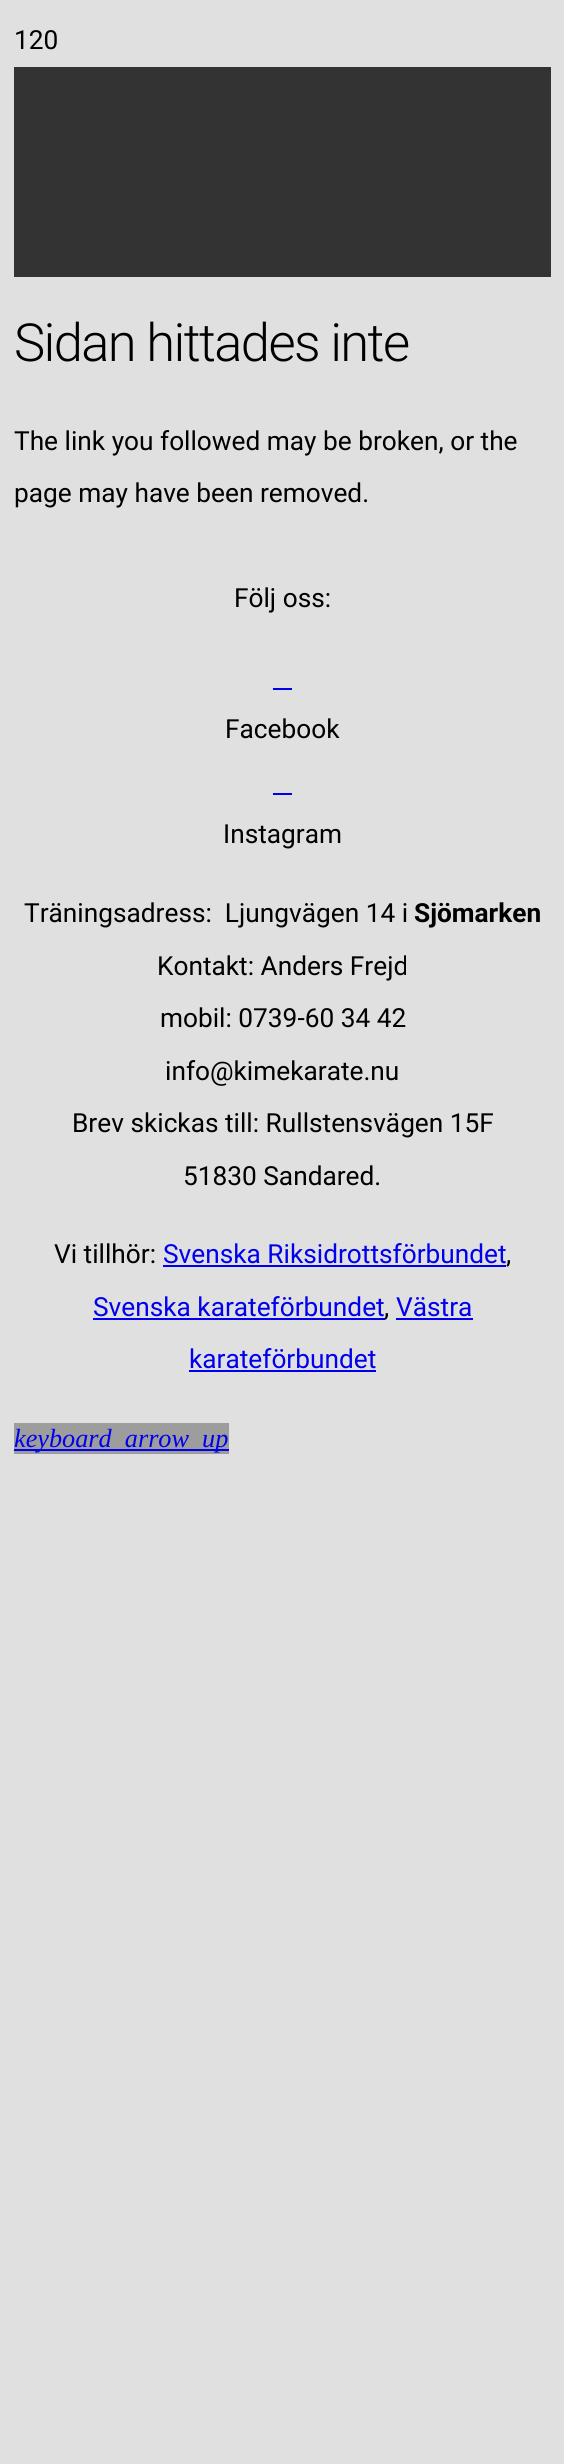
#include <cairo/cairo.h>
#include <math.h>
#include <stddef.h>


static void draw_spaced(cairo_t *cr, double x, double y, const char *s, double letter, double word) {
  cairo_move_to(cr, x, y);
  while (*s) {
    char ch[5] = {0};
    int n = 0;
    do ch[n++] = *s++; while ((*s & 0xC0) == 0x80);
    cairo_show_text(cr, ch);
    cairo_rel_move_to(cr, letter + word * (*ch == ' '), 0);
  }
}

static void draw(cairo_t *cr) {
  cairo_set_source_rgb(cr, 224 / 255.0, 224 / 255.0, 224 / 255.0);
  cairo_paint(cr);
  cairo_set_source_rgb(cr, 51 / 255.0, 51 / 255.0, 51 / 255.0);
  cairo_rectangle(cr, 14, 67, 537, 210);
  cairo_fill(cr);
  cairo_set_source_rgb(cr, 0, 0, 238 / 255.0);
  cairo_rectangle(cr, 273, 688, 19, 2);
  cairo_fill(cr);
  cairo_rectangle(cr, 273, 793, 19, 2);
  cairo_fill(cr);
  cairo_rectangle(cr, 163, 1265, 343, 2);
  cairo_fill(cr);
  cairo_rectangle(cr, 93, 1318, 292, 2);
  cairo_fill(cr);
  cairo_rectangle(cr, 396, 1318, 77, 2);
  cairo_fill(cr);
  cairo_rectangle(cr, 189, 1370, 187, 2);
  cairo_fill(cr);
  cairo_set_source_rgb(cr, 157 / 255.0, 157 / 255.0, 157 / 255.0);
  cairo_rectangle(cr, 14, 1423, 215, 31);
  cairo_fill(cr);
  cairo_set_source_rgb(cr, 0, 0, 238 / 255.0);
  cairo_rectangle(cr, 14, 1449, 215, 2);
  cairo_fill(cr);
  cairo_select_font_face(cr, "Roboto", CAIRO_FONT_SLANT_NORMAL, CAIRO_FONT_WEIGHT_NORMAL);
  cairo_set_font_size(cr, 26.25);
  cairo_set_source_rgb(cr, 0, 0, 0);
  cairo_move_to(cr, 14, 49);
  cairo_show_text(cr, "120");
  cairo_select_font_face(cr, "Roboto Light", CAIRO_FONT_SLANT_NORMAL, CAIRO_FONT_WEIGHT_NORMAL);
  cairo_set_font_size(cr, 52.5);
  draw_spaced(cr, 14, 361, "Sidan hittades inte", -1.6, 0);
  cairo_select_font_face(cr, "Roboto", CAIRO_FONT_SLANT_NORMAL, CAIRO_FONT_WEIGHT_NORMAL);
  cairo_set_font_size(cr, 26.25);
  cairo_move_to(cr, 14, 450);
  cairo_show_text(cr, "The link you followed may be broken, or the");
  cairo_move_to(cr, 14, 502);
  cairo_show_text(cr, "page may have been removed.");
  cairo_move_to(cr, 234, 607);
  cairo_show_text(cr, "Följ oss:");
  cairo_move_to(cr, 225, 738);
  cairo_show_text(cr, "Facebook");
  cairo_move_to(cr, 223, 843);
  cairo_show_text(cr, "Instagram");
  cairo_move_to(cr, 24, 922);
  cairo_show_text(cr, "Träningsadress:  Ljungvägen 14 i");
  cairo_select_font_face(cr, "Roboto", CAIRO_FONT_SLANT_NORMAL, CAIRO_FONT_WEIGHT_BOLD);
  cairo_move_to(cr, 414, 922);
  cairo_show_text(cr, "Sjömarken");
  cairo_select_font_face(cr, "Roboto", CAIRO_FONT_SLANT_NORMAL, CAIRO_FONT_WEIGHT_NORMAL);
  cairo_move_to(cr, 157, 975);
  cairo_show_text(cr, "Kontakt: Anders Frejd");
  cairo_move_to(cr, 160, 1027);
  cairo_show_text(cr, "mobil: 0739-60 34 42");
  cairo_move_to(cr, 165, 1080);
  cairo_show_text(cr, "info@kimekarate.nu");
  cairo_move_to(cr, 72, 1132);
  cairo_show_text(cr, "Brev skickas till: Rullstensvägen 15F");
  cairo_move_to(cr, 183, 1185);
  cairo_show_text(cr, "51830 Sandared.");
  cairo_move_to(cr, 54, 1263);
  cairo_show_text(cr, "Vi tillhör:");
  cairo_set_source_rgb(cr, 0, 0, 238 / 255.0);
  cairo_move_to(cr, 163, 1263);
  cairo_show_text(cr, "Svenska Riksidrottsförbundet");
  cairo_set_source_rgb(cr, 0, 0, 0);
  cairo_move_to(cr, 506, 1263);
  cairo_show_text(cr, ",");
  cairo_set_source_rgb(cr, 0, 0, 238 / 255.0);
  cairo_move_to(cr, 93, 1316);
  cairo_show_text(cr, "Svenska karateförbundet");
  cairo_set_source_rgb(cr, 0, 0, 0);
  cairo_move_to(cr, 384, 1316);
  cairo_show_text(cr, ",");
  cairo_set_source_rgb(cr, 0, 0, 238 / 255.0);
  cairo_move_to(cr, 396, 1316);
  cairo_show_text(cr, "Västra");
  cairo_move_to(cr, 189, 1368);
  cairo_show_text(cr, "karateförbundet");
  cairo_select_font_face(cr, "Liberation Serif", CAIRO_FONT_SLANT_ITALIC, CAIRO_FONT_WEIGHT_NORMAL);
  cairo_move_to(cr, 14, 1447);
  cairo_show_text(cr, "keyboard_arrow_up");
}

int main(void) {
  cairo_surface_t *surface = cairo_image_surface_create(CAIRO_FORMAT_RGB24, 564, 2464);
  cairo_t *cr = cairo_create(surface);
  cairo_font_options_t *options = cairo_font_options_create();
  cairo_font_options_set_hint_metrics(options, CAIRO_HINT_METRICS_OFF);
  cairo_font_options_set_hint_style(options, CAIRO_HINT_STYLE_NONE);
  cairo_set_font_options(cr, options);
  cairo_set_miter_limit(cr, 4);
  draw(cr);
  cairo_surface_write_to_png(surface, "out.png");
  cairo_font_options_destroy(options);
  cairo_destroy(cr);
  cairo_surface_destroy(surface);
  return 0;
}
